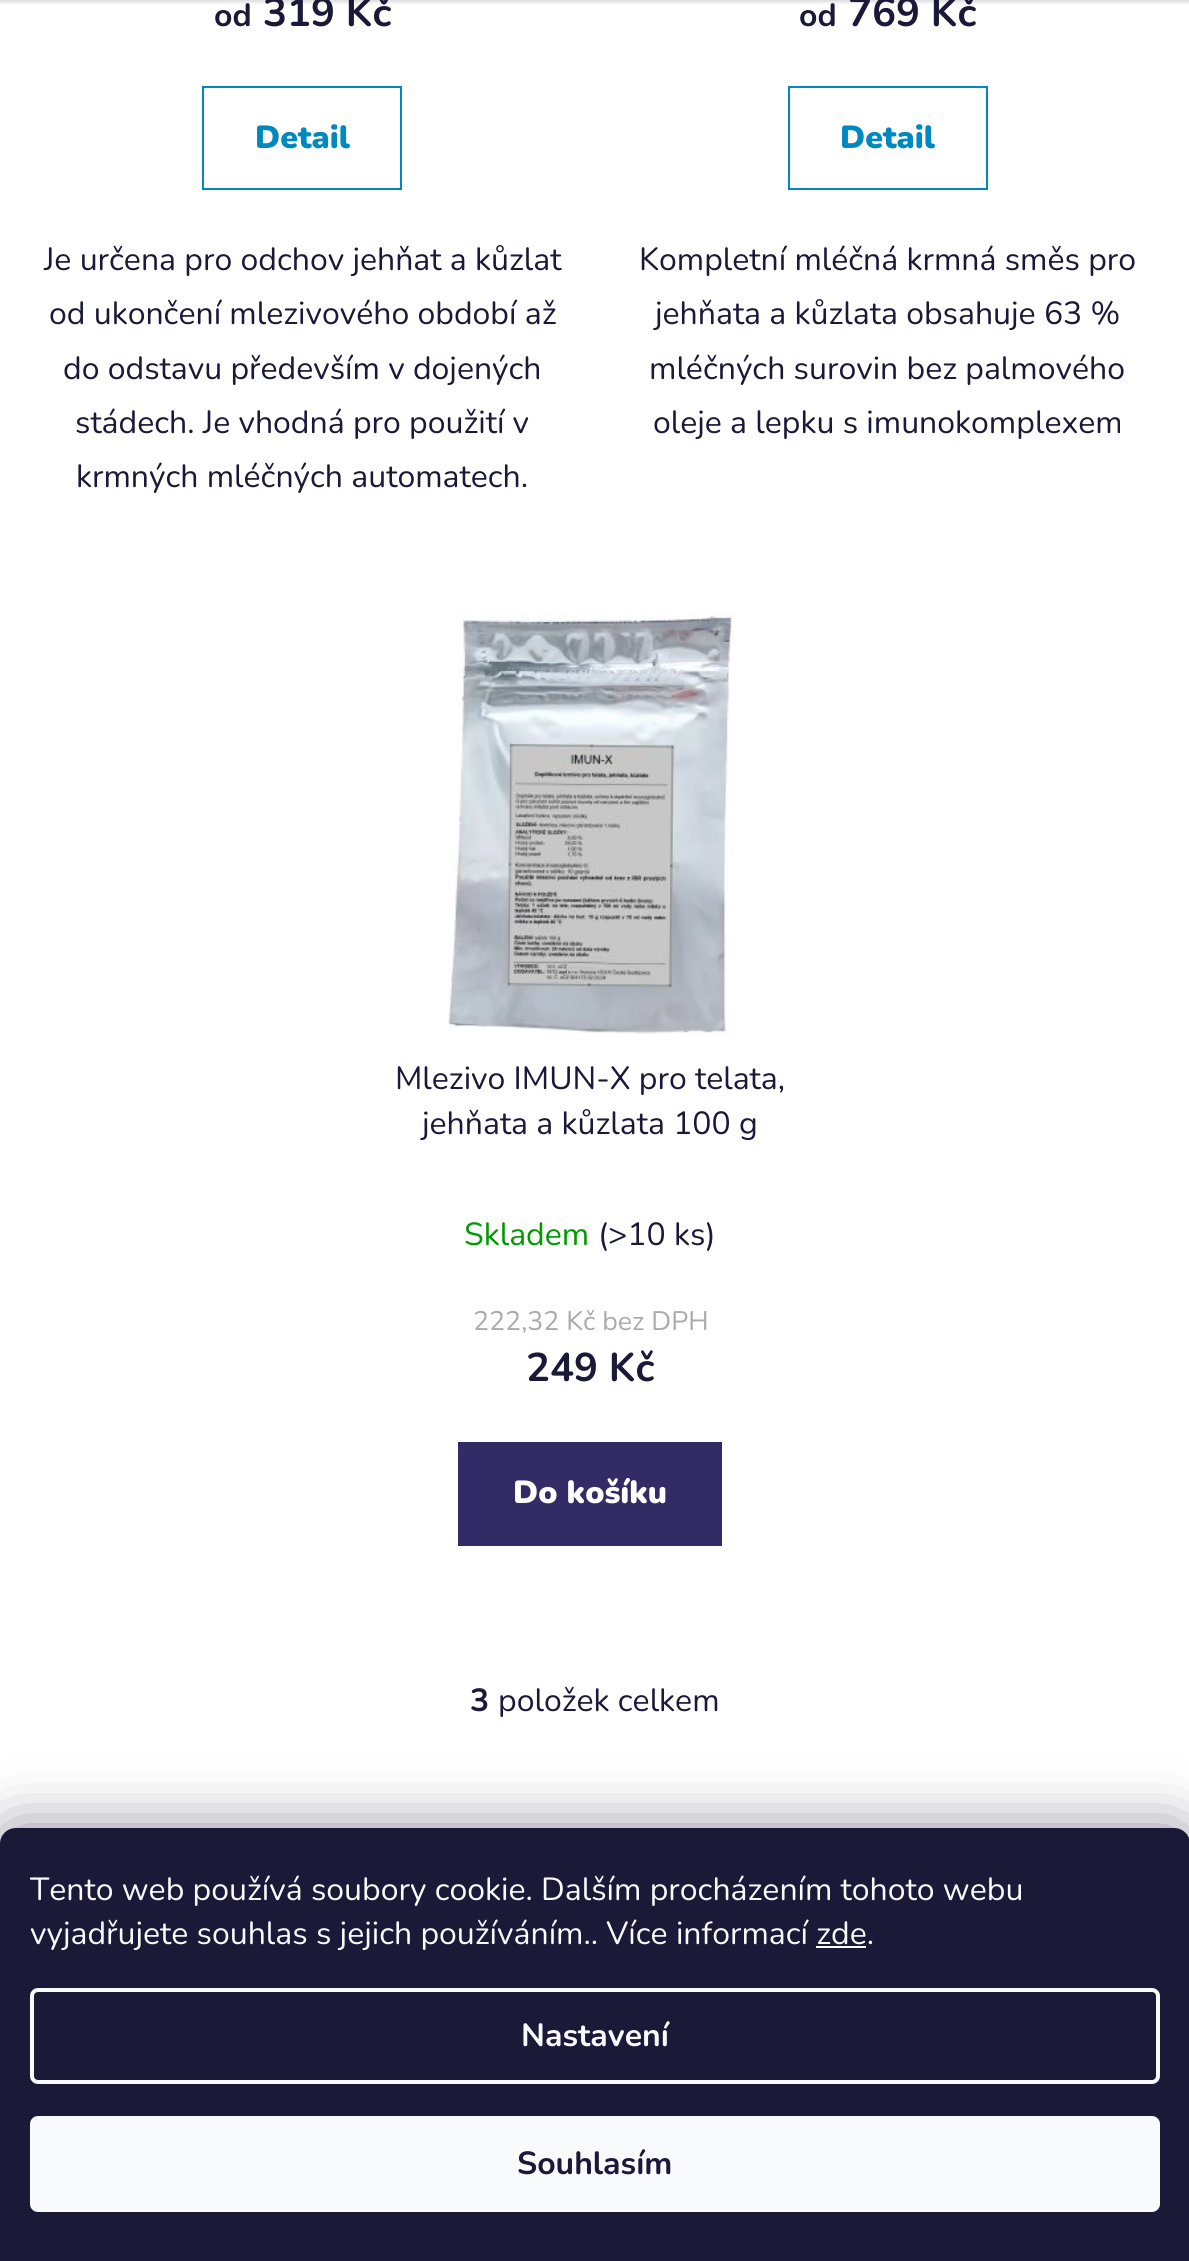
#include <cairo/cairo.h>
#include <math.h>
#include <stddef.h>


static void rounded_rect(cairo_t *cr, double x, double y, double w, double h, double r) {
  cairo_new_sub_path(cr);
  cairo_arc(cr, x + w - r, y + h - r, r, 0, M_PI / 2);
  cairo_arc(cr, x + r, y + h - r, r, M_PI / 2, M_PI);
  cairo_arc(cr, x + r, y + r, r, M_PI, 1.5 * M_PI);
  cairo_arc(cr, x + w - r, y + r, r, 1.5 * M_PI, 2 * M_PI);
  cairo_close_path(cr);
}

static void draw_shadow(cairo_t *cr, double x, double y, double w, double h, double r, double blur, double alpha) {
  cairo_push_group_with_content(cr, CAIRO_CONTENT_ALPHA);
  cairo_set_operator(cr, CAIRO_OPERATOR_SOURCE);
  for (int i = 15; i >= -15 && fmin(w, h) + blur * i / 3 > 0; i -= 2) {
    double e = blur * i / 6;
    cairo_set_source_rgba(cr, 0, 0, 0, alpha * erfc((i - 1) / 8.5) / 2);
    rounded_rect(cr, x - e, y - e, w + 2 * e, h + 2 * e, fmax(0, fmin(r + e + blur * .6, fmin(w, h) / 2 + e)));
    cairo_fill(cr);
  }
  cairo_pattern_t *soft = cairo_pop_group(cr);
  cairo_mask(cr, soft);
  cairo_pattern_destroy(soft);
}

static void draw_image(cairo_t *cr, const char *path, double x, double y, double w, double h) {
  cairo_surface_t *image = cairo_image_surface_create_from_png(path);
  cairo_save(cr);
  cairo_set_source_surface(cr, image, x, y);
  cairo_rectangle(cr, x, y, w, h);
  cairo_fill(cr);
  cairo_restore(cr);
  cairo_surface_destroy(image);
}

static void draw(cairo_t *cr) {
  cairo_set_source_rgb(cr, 1, 1, 1);
  cairo_paint(cr);
  cairo_set_source_rgb(cr, 0, 0, 0);
  draw_shadow(cr, 0, -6, 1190, 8, 0, 2, 0.16);
  cairo_rectangle(cr, 203, 87, 198, 102);
  cairo_set_source_rgb(cr, 0, 136 / 255.0, 191 / 255.0);
  cairo_stroke(cr);
  cairo_rectangle(cr, 789, 87, 198, 102);
  cairo_stroke(cr);
  draw_image(cr, "images/1.png", 448, 614, 286, 422);
  cairo_set_source_rgb(cr, 51 / 255.0, 43 / 255.0, 102 / 255.0);
  cairo_rectangle(cr, 458, 1442, 264, 104);
  cairo_fill(cr);
  cairo_set_source_rgb(cr, 27 / 255.0, 25 / 255.0, 57 / 255.0);
  draw_shadow(cr, 0, 1828, 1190, 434, 16, 30, 0.5);
  cairo_set_source_rgb(cr, 26 / 255.0, 25 / 255.0, 55 / 255.0);
  cairo_new_path(cr);
  cairo_move_to(cr, 16, 1828);
  cairo_line_to(cr, 1174, 1828);
  cairo_curve_to(cr, 1183, 1828, 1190, 1835, 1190, 1844);
  cairo_line_to(cr, 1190, 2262);
  cairo_line_to(cr, 0, 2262);
  cairo_line_to(cr, 0, 1844);
  cairo_curve_to(cr, 0, 1835, 7, 1828, 16, 1828);
  cairo_close_path(cr);
  cairo_fill(cr);
  cairo_set_source_rgb(cr, 248 / 255.0, 250 / 255.0, 251 / 255.0);
  cairo_rectangle(cr, 816, 1946, 50, 2);
  cairo_fill(cr);
  rounded_rect(cr, 32, 1990, 1126, 92, 6);
  cairo_set_line_width(cr, 4);
  cairo_stroke(cr);
  rounded_rect(cr, 30, 2116, 1130, 96, 8);
  cairo_fill(cr);
  cairo_select_font_face(cr, "Nunito", CAIRO_FONT_SLANT_NORMAL, CAIRO_FONT_WEIGHT_BOLD);
  cairo_set_font_size(cr, 32);
  cairo_set_source_rgb(cr, 26 / 255.0, 25 / 255.0, 55 / 255.0);
  cairo_move_to(cr, 214, 26);
  cairo_show_text(cr, "od");
  cairo_set_font_size(cr, 40);
  cairo_move_to(cr, 263, 26);
  cairo_show_text(cr, "319 Kč");
  cairo_select_font_face(cr, "Nunito Black", CAIRO_FONT_SLANT_NORMAL, CAIRO_FONT_WEIGHT_NORMAL);
  cairo_set_font_size(cr, 32);
  cairo_set_source_rgb(cr, 0, 136 / 255.0, 191 / 255.0);
  cairo_move_to(cr, 255, 148);
  cairo_show_text(cr, "Detail");
  cairo_select_font_face(cr, "Nunito", CAIRO_FONT_SLANT_NORMAL, CAIRO_FONT_WEIGHT_NORMAL);
  cairo_set_source_rgb(cr, 26 / 255.0, 25 / 255.0, 55 / 255.0);
  cairo_move_to(cr, 44, 270);
  cairo_show_text(cr, "Je určena pro odchov jehňat a kůzlat");
  cairo_move_to(cr, 49, 324);
  cairo_show_text(cr, "od ukončení mlezivového období až");
  cairo_move_to(cr, 63, 379);
  cairo_show_text(cr, "do odstavu především v dojených");
  cairo_move_to(cr, 75, 433);
  cairo_show_text(cr, "stádech. Je vhodná pro použití v");
  cairo_move_to(cr, 76, 487);
  cairo_show_text(cr, "krmných mléčných automatech.");
  cairo_select_font_face(cr, "Nunito", CAIRO_FONT_SLANT_NORMAL, CAIRO_FONT_WEIGHT_BOLD);
  cairo_move_to(cr, 799, 26);
  cairo_show_text(cr, "od");
  cairo_set_font_size(cr, 40);
  cairo_move_to(cr, 848, 26);
  cairo_show_text(cr, "769 Kč");
  cairo_select_font_face(cr, "Nunito Black", CAIRO_FONT_SLANT_NORMAL, CAIRO_FONT_WEIGHT_NORMAL);
  cairo_set_font_size(cr, 32);
  cairo_set_source_rgb(cr, 0, 136 / 255.0, 191 / 255.0);
  cairo_move_to(cr, 840, 148);
  cairo_show_text(cr, "Detail");
  cairo_select_font_face(cr, "Nunito", CAIRO_FONT_SLANT_NORMAL, CAIRO_FONT_WEIGHT_NORMAL);
  cairo_set_source_rgb(cr, 26 / 255.0, 25 / 255.0, 55 / 255.0);
  cairo_move_to(cr, 639, 270);
  cairo_show_text(cr, "Kompletní mléčná krmná směs pro");
  cairo_move_to(cr, 655, 324);
  cairo_show_text(cr, "jehňata a kůzlata obsahuje 63 %");
  cairo_move_to(cr, 649, 379);
  cairo_show_text(cr, "mléčných surovin bez palmového");
  cairo_move_to(cr, 653, 433);
  cairo_show_text(cr, "oleje a lepku s imunokomplexem");
  cairo_move_to(cr, 395, 1089);
  cairo_show_text(cr, "Mlezivo IMUN-X pro telata,");
  cairo_move_to(cr, 422, 1134);
  cairo_show_text(cr, "jehňata a kůzlata 100 g");
  cairo_set_source_rgb(cr, 0, 153 / 255.0, 1 / 255.0);
  cairo_move_to(cr, 464, 1245);
  cairo_show_text(cr, "Skladem");
  cairo_set_source_rgb(cr, 26 / 255.0, 25 / 255.0, 55 / 255.0);
  cairo_move_to(cr, 598, 1245);
  cairo_show_text(cr, "(>10 ks)");
  cairo_set_font_size(cr, 26.75);
  cairo_set_source_rgb(cr, 170 / 255.0, 170 / 255.0, 170 / 255.0);
  cairo_move_to(cr, 473, 1330);
  cairo_show_text(cr, "222,32 Kč bez DPH");
  cairo_select_font_face(cr, "Nunito", CAIRO_FONT_SLANT_NORMAL, CAIRO_FONT_WEIGHT_BOLD);
  cairo_set_font_size(cr, 40);
  cairo_set_source_rgb(cr, 26 / 255.0, 25 / 255.0, 55 / 255.0);
  cairo_move_to(cr, 526, 1381);
  cairo_show_text(cr, "249 Kč");
  cairo_select_font_face(cr, "Nunito Black", CAIRO_FONT_SLANT_NORMAL, CAIRO_FONT_WEIGHT_NORMAL);
  cairo_set_font_size(cr, 32);
  cairo_set_source_rgb(cr, 1, 1, 1);
  cairo_move_to(cr, 513, 1503);
  cairo_show_text(cr, "Do košíku");
  cairo_select_font_face(cr, "Nunito", CAIRO_FONT_SLANT_NORMAL, CAIRO_FONT_WEIGHT_BOLD);
  cairo_set_source_rgb(cr, 26 / 255.0, 25 / 255.0, 55 / 255.0);
  cairo_move_to(cr, 470, 1711);
  cairo_show_text(cr, "3");
  cairo_select_font_face(cr, "Nunito", CAIRO_FONT_SLANT_NORMAL, CAIRO_FONT_WEIGHT_NORMAL);
  cairo_move_to(cr, 498, 1711);
  cairo_show_text(cr, "položek celkem");
  cairo_set_source_rgb(cr, 248 / 255.0, 250 / 255.0, 251 / 255.0);
  cairo_move_to(cr, 30, 1900);
  cairo_show_text(cr, "Tento web používá soubory cookie. Dalším procházením tohoto webu");
  cairo_move_to(cr, 30, 1944);
  cairo_show_text(cr, "vyjadřujete souhlas s jejich používáním.. Více informací zde.");
  cairo_select_font_face(cr, "Nunito", CAIRO_FONT_SLANT_NORMAL, CAIRO_FONT_WEIGHT_BOLD);
  cairo_move_to(cr, 521, 2046);
  cairo_show_text(cr, "Nastavení");
  cairo_set_source_rgb(cr, 26 / 255.0, 25 / 255.0, 55 / 255.0);
  cairo_move_to(cr, 517, 2174);
  cairo_show_text(cr, "Souhlasím");
}

int main(void) {
  cairo_surface_t *surface = cairo_image_surface_create(CAIRO_FORMAT_RGB24, 1189, 2261);
  cairo_t *cr = cairo_create(surface);
  cairo_font_options_t *options = cairo_font_options_create();
  cairo_font_options_set_hint_metrics(options, CAIRO_HINT_METRICS_OFF);
  cairo_font_options_set_hint_style(options, CAIRO_HINT_STYLE_NONE);
  cairo_set_font_options(cr, options);
  cairo_set_miter_limit(cr, 4);
  draw(cr);
  cairo_surface_write_to_png(surface, "out.png");
  cairo_font_options_destroy(options);
  cairo_destroy(cr);
  cairo_surface_destroy(surface);
  return 0;
}
